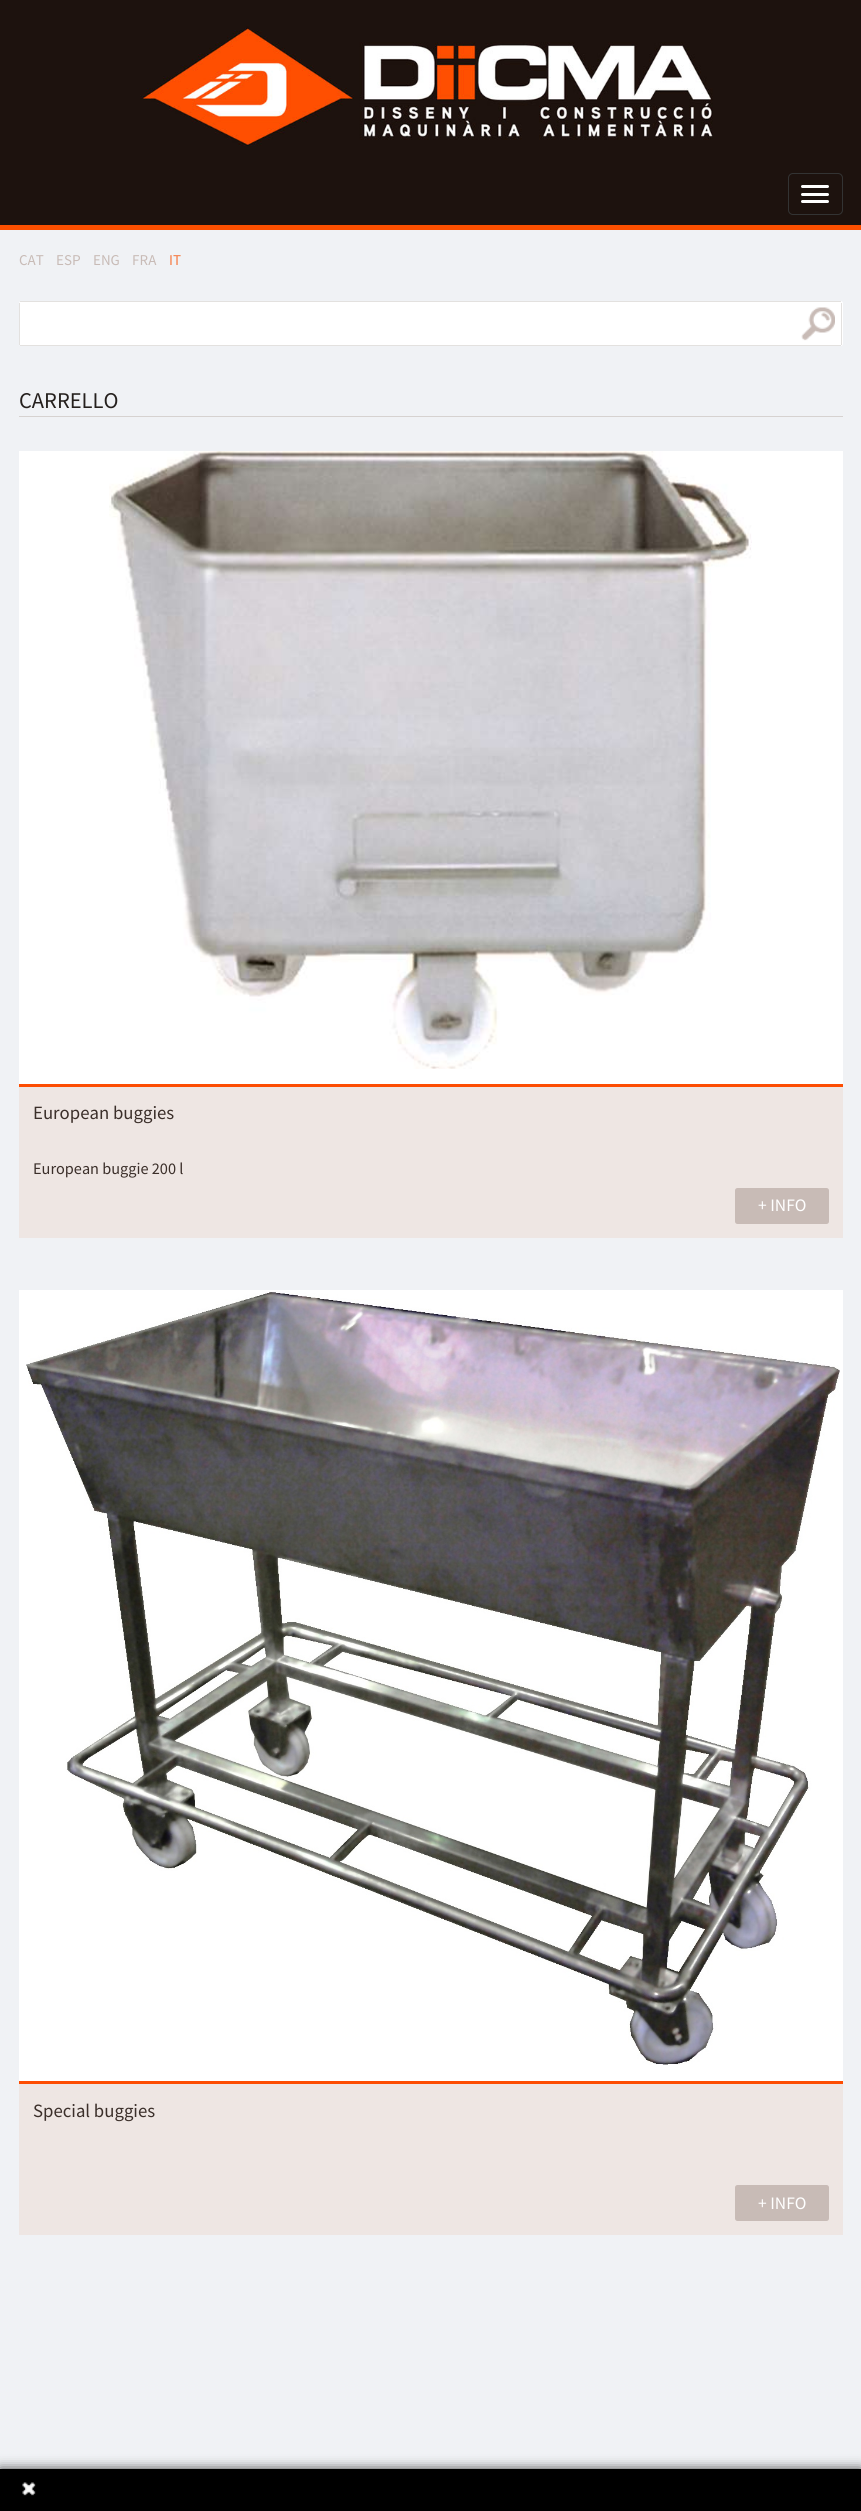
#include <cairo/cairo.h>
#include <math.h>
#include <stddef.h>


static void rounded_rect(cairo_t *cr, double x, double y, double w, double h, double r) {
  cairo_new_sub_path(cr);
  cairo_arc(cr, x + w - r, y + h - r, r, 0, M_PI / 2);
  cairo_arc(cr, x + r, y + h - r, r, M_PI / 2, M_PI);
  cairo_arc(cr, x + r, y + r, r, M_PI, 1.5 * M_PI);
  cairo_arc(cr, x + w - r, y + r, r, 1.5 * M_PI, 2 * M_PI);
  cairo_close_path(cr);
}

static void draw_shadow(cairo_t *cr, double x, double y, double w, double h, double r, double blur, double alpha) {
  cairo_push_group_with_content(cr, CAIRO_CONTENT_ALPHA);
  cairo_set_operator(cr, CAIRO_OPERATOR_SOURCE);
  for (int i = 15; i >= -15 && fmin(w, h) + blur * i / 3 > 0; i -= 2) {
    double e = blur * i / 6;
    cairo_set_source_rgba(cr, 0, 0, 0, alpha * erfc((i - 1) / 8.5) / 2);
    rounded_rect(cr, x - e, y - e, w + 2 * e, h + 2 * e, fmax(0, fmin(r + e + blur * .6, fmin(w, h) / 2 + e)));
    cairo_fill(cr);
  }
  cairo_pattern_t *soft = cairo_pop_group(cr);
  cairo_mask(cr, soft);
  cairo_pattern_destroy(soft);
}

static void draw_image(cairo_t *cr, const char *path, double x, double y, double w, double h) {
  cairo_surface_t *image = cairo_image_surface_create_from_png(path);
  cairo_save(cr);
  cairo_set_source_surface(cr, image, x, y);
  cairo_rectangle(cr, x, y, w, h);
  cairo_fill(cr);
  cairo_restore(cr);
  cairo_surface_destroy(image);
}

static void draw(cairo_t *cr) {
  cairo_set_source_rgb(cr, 240 / 255.0, 242 / 255.0, 245 / 255.0);
  cairo_paint(cr);
  cairo_set_source_rgb(cr, 29 / 255.0, 18 / 255.0, 14 / 255.0);
  cairo_rectangle(cr, 0, 0, 861, 225);
  cairo_fill(cr);
  cairo_set_source_rgb(cr, 252 / 255.0, 79 / 255.0, 0);
  cairo_rectangle(cr, 0, 225, 861, 5);
  cairo_fill(cr);
  draw_image(cr, "images/1.png", 140, 26, 573, 120);
  rounded_rect(cr, 788.5, 173.5, 54, 41, 4.5);
  cairo_set_source_rgb(cr, 51 / 255.0, 51 / 255.0, 51 / 255.0);
  cairo_set_line_width(cr, 1);
  cairo_stroke(cr);
  cairo_set_source_rgb(cr, 1, 1, 1);
  rounded_rect(cr, 801, 185, 28, 3, 1.5);
  cairo_fill(cr);
  rounded_rect(cr, 801, 193, 28, 3, 1.5);
  cairo_fill(cr);
  rounded_rect(cr, 801, 200, 28, 3, 1.5);
  cairo_fill(cr);
  cairo_new_path(cr);
  cairo_move_to(cr, 21.5, 301);
  cairo_line_to(cr, 795, 301);
  cairo_line_to(cr, 795, 346);
  cairo_line_to(cr, 21.5, 346);
  cairo_curve_to(cr, 20, 346, 19, 345, 19, 343.5);
  cairo_line_to(cr, 19, 303.5);
  cairo_curve_to(cr, 19, 302, 20, 301, 21.5, 301);
  cairo_close_path(cr);
  cairo_fill(cr);
  cairo_set_source_rgb(cr, 227 / 255.0, 225 / 255.0, 223 / 255.0);
  cairo_rectangle(cr, 20, 301, 775, 1);
  cairo_fill(cr);
  cairo_rectangle(cr, 20, 345, 775, 1);
  cairo_fill(cr);
  cairo_rectangle(cr, 19, 303, 1, 42);
  cairo_fill(cr);
  cairo_set_source_rgb(cr, 1, 1, 1);
  cairo_new_path(cr);
  cairo_move_to(cr, 795, 301);
  cairo_line_to(cr, 840.5, 301);
  cairo_curve_to(cr, 842, 301, 843, 302, 843, 303.5);
  cairo_line_to(cr, 843, 343.5);
  cairo_curve_to(cr, 843, 345, 842, 346, 840.5, 346);
  cairo_line_to(cr, 795, 346);
  cairo_close_path(cr);
  cairo_fill(cr);
  cairo_set_source_rgb(cr, 227 / 255.0, 225 / 255.0, 223 / 255.0);
  cairo_rectangle(cr, 795, 301, 46, 1);
  cairo_fill(cr);
  cairo_rectangle(cr, 841, 303, 1, 42);
  cairo_fill(cr);
  cairo_rectangle(cr, 795, 345, 46, 1);
  cairo_fill(cr);
  draw_image(cr, "images/2.png", 801, 307, 34, 34);
  cairo_set_source_rgb(cr, 214 / 255.0, 210 / 255.0, 208 / 255.0);
  cairo_rectangle(cr, 19, 416, 824, 1);
  cairo_fill(cr);
  cairo_set_source_rgb(cr, 1, 1, 1);
  cairo_rectangle(cr, 19, 451, 824, 633);
  cairo_fill(cr);
  draw_image(cr, "images/3.png", 109, 451, 643, 618);
  cairo_set_source_rgb(cr, 238 / 255.0, 230 / 255.0, 227 / 255.0);
  cairo_rectangle(cr, 19, 1087, 824, 151);
  cairo_fill(cr);
  cairo_set_source_rgb(cr, 253 / 255.0, 77 / 255.0, 2 / 255.0);
  cairo_rectangle(cr, 19, 1084, 824, 3);
  cairo_fill(cr);
  cairo_set_source_rgb(cr, 200 / 255.0, 187 / 255.0, 182 / 255.0);
  rounded_rect(cr, 735, 1188, 94, 36, 2.5);
  cairo_fill(cr);
  cairo_set_source_rgb(cr, 1, 1, 1);
  cairo_rectangle(cr, 19, 1290, 824, 791);
  cairo_fill(cr);
  draw_image(cr, "images/4.png", 26, 1291, 814, 774);
  cairo_set_source_rgb(cr, 238 / 255.0, 230 / 255.0, 227 / 255.0);
  cairo_rectangle(cr, 19, 2084, 824, 151);
  cairo_fill(cr);
  cairo_set_source_rgb(cr, 253 / 255.0, 77 / 255.0, 2 / 255.0);
  cairo_rectangle(cr, 19, 2081, 824, 3);
  cairo_fill(cr);
  cairo_set_source_rgb(cr, 200 / 255.0, 187 / 255.0, 182 / 255.0);
  rounded_rect(cr, 735, 2185, 94, 36, 2.5);
  cairo_fill(cr);
  cairo_set_source_rgb(cr, 68 / 255.0, 68 / 255.0, 68 / 255.0);
  draw_shadow(cr, 0, 2469, 861, 42, 0, 6, 1);
  cairo_set_source_rgb(cr, 0, 0, 0);
  cairo_rectangle(cr, 0, 2469, 861, 42);
  cairo_fill(cr);
  draw_image(cr, "images/5.png", 22, 2482, 14, 14);
  cairo_select_font_face(cr, "Source Sans Pro", CAIRO_FONT_SLANT_NORMAL, CAIRO_FONT_WEIGHT_NORMAL);
  cairo_set_font_size(cr, 15);
  cairo_set_source_rgb(cr, 200 / 255.0, 187 / 255.0, 182 / 255.0);
  cairo_move_to(cr, 19, 265);
  cairo_show_text(cr, "CAT");
  cairo_move_to(cr, 56, 265);
  cairo_show_text(cr, "ESP");
  cairo_move_to(cr, 93, 265);
  cairo_show_text(cr, "ENG");
  cairo_move_to(cr, 132, 265);
  cairo_show_text(cr, "FRA");
  cairo_set_source_rgb(cr, 246 / 255.0, 121 / 255.0, 65 / 255.0);
  cairo_move_to(cr, 169, 265);
  cairo_show_text(cr, "IT");
  cairo_select_font_face(cr, "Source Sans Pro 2", CAIRO_FONT_SLANT_NORMAL, CAIRO_FONT_WEIGHT_NORMAL);
  cairo_set_font_size(cr, 22.5);
  cairo_set_source_rgb(cr, 37 / 255.0, 32 / 255.0, 29 / 255.0);
  cairo_move_to(cr, 19, 408);
  cairo_show_text(cr, "CARRELLO");
  cairo_set_font_size(cr, 18.75);
  cairo_set_source_rgb(cr, 59 / 255.0, 47 / 255.0, 42 / 255.0);
  cairo_move_to(cr, 33, 1119);
  cairo_show_text(cr, "European buggies");
  cairo_set_font_size(cr, 16.25);
  cairo_move_to(cr, 33, 1174);
  cairo_show_text(cr, "European buggie 200 l");
  cairo_select_font_face(cr, "Source Sans Pro", CAIRO_FONT_SLANT_NORMAL, CAIRO_FONT_WEIGHT_NORMAL);
  cairo_set_font_size(cr, 17.5);
  cairo_set_source_rgb(cr, 1, 1, 1);
  cairo_move_to(cr, 758, 1211);
  cairo_show_text(cr, "+ INFO");
  cairo_select_font_face(cr, "Source Sans Pro 2", CAIRO_FONT_SLANT_NORMAL, CAIRO_FONT_WEIGHT_NORMAL);
  cairo_set_font_size(cr, 18.75);
  cairo_set_source_rgb(cr, 59 / 255.0, 47 / 255.0, 42 / 255.0);
  cairo_move_to(cr, 33, 2117);
  cairo_show_text(cr, "Special buggies");
  cairo_select_font_face(cr, "Source Sans Pro", CAIRO_FONT_SLANT_NORMAL, CAIRO_FONT_WEIGHT_NORMAL);
  cairo_set_font_size(cr, 17.5);
  cairo_set_source_rgb(cr, 1, 1, 1);
  cairo_move_to(cr, 758, 2209);
  cairo_show_text(cr, "+ INFO");
}

int main(void) {
  cairo_surface_t *surface = cairo_image_surface_create(CAIRO_FORMAT_RGB24, 861, 2511);
  cairo_t *cr = cairo_create(surface);
  cairo_font_options_t *options = cairo_font_options_create();
  cairo_font_options_set_hint_metrics(options, CAIRO_HINT_METRICS_OFF);
  cairo_font_options_set_hint_style(options, CAIRO_HINT_STYLE_NONE);
  cairo_set_font_options(cr, options);
  cairo_set_miter_limit(cr, 4);
  draw(cr);
  cairo_surface_write_to_png(surface, "out.png");
  cairo_font_options_destroy(options);
  cairo_destroy(cr);
  cairo_surface_destroy(surface);
  return 0;
}
